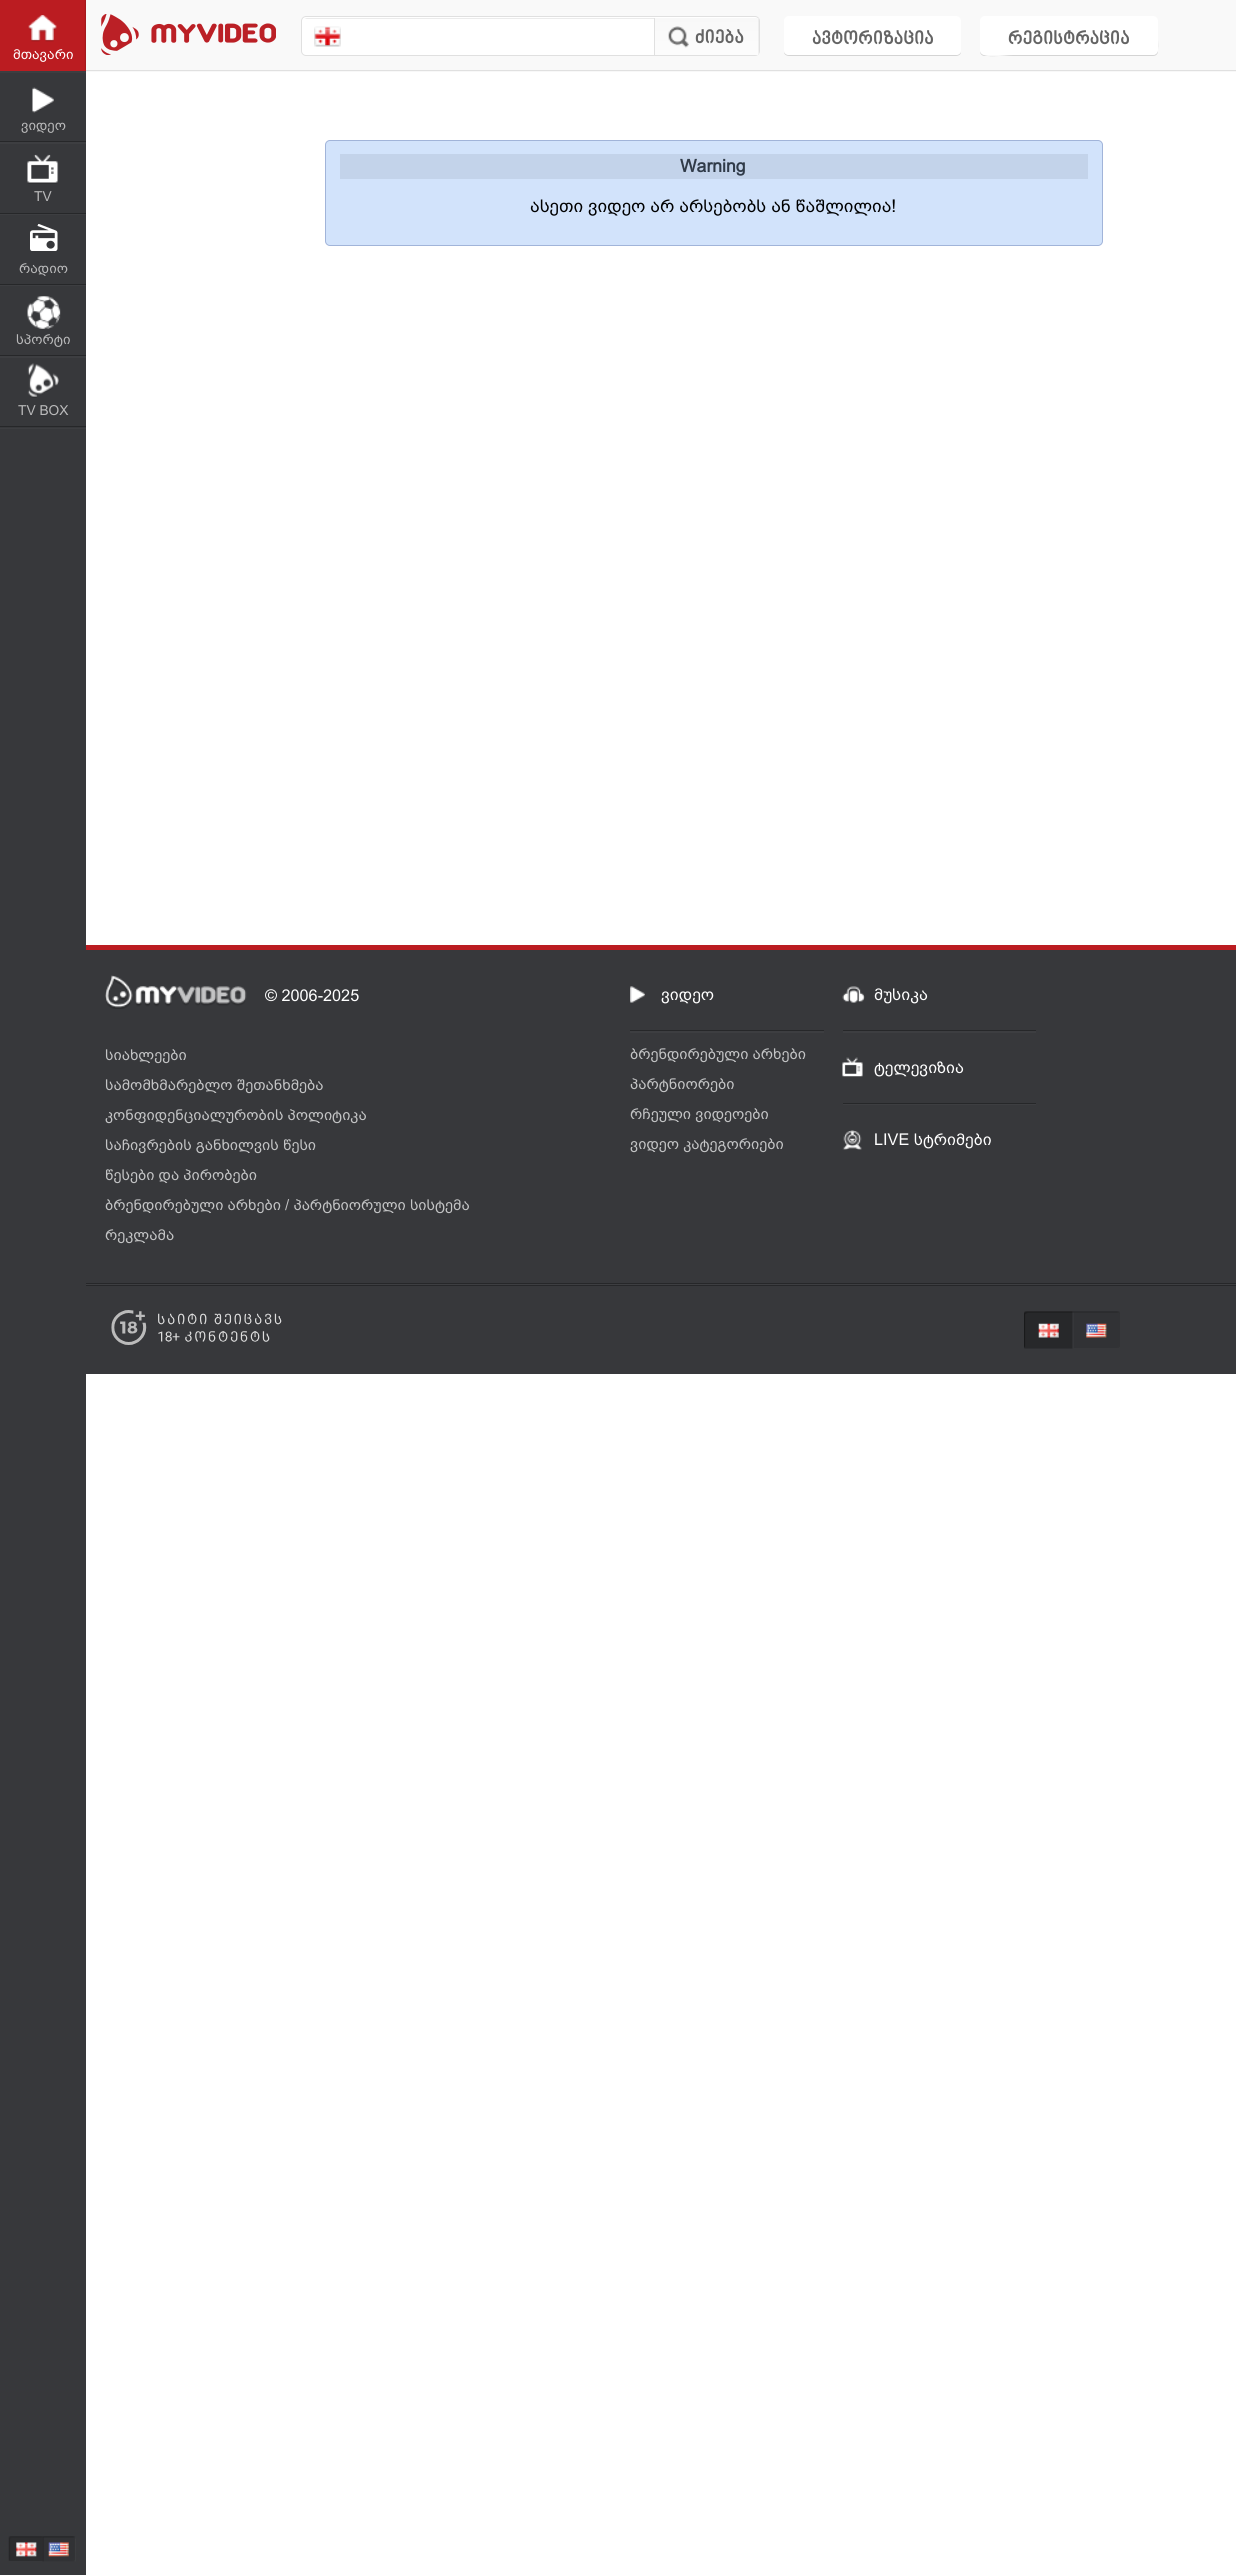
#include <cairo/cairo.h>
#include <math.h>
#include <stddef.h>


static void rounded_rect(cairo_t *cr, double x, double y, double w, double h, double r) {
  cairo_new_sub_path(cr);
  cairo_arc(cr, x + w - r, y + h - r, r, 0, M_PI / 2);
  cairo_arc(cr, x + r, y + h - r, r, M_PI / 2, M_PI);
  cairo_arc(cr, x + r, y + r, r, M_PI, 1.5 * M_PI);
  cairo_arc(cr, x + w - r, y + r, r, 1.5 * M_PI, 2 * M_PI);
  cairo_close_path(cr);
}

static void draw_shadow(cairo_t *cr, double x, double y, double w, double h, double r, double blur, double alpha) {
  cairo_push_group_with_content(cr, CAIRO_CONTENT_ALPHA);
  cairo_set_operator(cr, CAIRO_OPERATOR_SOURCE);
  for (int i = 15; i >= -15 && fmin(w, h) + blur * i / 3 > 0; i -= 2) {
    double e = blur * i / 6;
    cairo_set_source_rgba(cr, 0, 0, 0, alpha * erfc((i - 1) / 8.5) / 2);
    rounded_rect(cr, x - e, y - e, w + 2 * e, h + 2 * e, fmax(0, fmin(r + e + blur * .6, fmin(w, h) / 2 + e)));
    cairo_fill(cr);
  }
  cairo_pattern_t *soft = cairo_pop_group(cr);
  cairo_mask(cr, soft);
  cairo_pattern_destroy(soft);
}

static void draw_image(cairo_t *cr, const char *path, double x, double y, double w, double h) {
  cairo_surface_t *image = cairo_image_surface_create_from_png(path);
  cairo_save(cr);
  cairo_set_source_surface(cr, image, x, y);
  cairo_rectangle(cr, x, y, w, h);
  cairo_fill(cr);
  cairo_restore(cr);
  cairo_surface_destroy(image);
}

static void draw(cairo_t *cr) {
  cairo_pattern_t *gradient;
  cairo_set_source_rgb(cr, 1, 1, 1);
  cairo_paint(cr);
  cairo_set_source_rgb(cr, 55 / 255.0, 56 / 255.0, 59 / 255.0);
  cairo_rectangle(cr, 0, 73, 86, 2502);
  cairo_fill(cr);
  cairo_set_source_rgb(cr, 61 / 255.0, 62 / 255.0, 65 / 255.0);
  cairo_rectangle(cr, 0, 71, 86, 2);
  cairo_fill(cr);
  cairo_set_source_rgb(cr, 187 / 255.0, 28 / 255.0, 33 / 255.0);
  cairo_rectangle(cr, 0, 0, 86, 71);
  cairo_fill(cr);
  cairo_set_source_rgb(cr, 0, 0, 0);
  draw_shadow(cr, 86, 0, 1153, 70, 0, 1, 0.36);
  cairo_set_source_rgb(cr, 249 / 255.0, 249 / 255.0, 249 / 255.0);
  cairo_rectangle(cr, 86, 0, 1150, 70);
  cairo_fill(cr);
  draw_image(cr, "images/1.png", 101, 14, 175, 41);
  cairo_set_source_rgb(cr, 1, 1, 1);
  rounded_rect(cr, 301, 16, 459, 40, 5);
  cairo_fill(cr);
  cairo_set_source_rgb(cr, 235 / 255.0, 235 / 255.0, 235 / 255.0);
  cairo_new_path(cr);
  cairo_move_to(cr, 306, 19);
  cairo_line_to(cr, 755, 19);
  cairo_curve_to(cr, 757, 19, 759, 20, 759, 22);
  cairo_curve_to(cr, 759, 20, 757, 18, 755, 18);
  cairo_line_to(cr, 307, 18);
  cairo_curve_to(cr, 306, 18, 305, 19, 304, 19);
  cairo_close_path(cr);
  cairo_fill(cr);
  rounded_rect(cr, 301.5, 16.5, 458, 39, 4.5);
  cairo_set_source_rgb(cr, 224 / 255.0, 224 / 255.0, 224 / 255.0);
  cairo_set_line_width(cr, 1);
  cairo_stroke(cr);
  draw_image(cr, "images/2.png", 314, 26, 27, 21);
  gradient = cairo_pattern_create_linear(706, 17, 706, 55);
  cairo_pattern_add_color_stop_rgba(gradient, 0, 248 / 255.0, 248 / 255.0, 248 / 255.0, 1);
  cairo_pattern_add_color_stop_rgba(gradient, 1, 252 / 255.0, 252 / 255.0, 252 / 255.0, 1);
  cairo_set_source(cr, gradient);
  cairo_pattern_destroy(gradient);
  cairo_rectangle(cr, 655, 18, 104, 37);
  cairo_fill(cr);
  cairo_set_source_rgba(cr, 0, 0, 0, 0.05);
  cairo_rectangle(cr, 758, 18, 1, 37);
  cairo_fill(cr);
  draw_image(cr, "images/3.png", 668, 26, 21, 22);
  cairo_set_source_rgb(cr, 224 / 255.0, 224 / 255.0, 224 / 255.0);
  cairo_rectangle(cr, 654, 18, 1, 37);
  cairo_fill(cr);
  cairo_set_source_rgb(cr, 212 / 255.0, 212 / 255.0, 212 / 255.0);
  cairo_new_path(cr);
  cairo_move_to(cr, 784, 52);
  cairo_curve_to(cr, 784, 54, 786, 56, 789, 56);
  cairo_line_to(cr, 956, 56);
  cairo_curve_to(cr, 959, 56, 961, 54, 961, 52);
  cairo_curve_to(cr, 960, 54, 958, 55, 956, 55);
  cairo_line_to(cr, 789, 55);
  cairo_curve_to(cr, 787, 55, 785, 54, 784, 52);
  cairo_close_path(cr);
  cairo_fill(cr);
  cairo_set_source_rgb(cr, 1, 1, 1);
  rounded_rect(cr, 784, 16, 177, 39, 5);
  cairo_fill(cr);
  cairo_set_source_rgb(cr, 212 / 255.0, 212 / 255.0, 212 / 255.0);
  cairo_new_path(cr);
  cairo_move_to(cr, 980, 50);
  cairo_line_to(cr, 980, 51);
  cairo_curve_to(cr, 980, 54, 982, 56, 985, 56);
  cairo_line_to(cr, 1153, 56);
  cairo_curve_to(cr, 1156, 56, 1158, 54, 1158, 51);
  cairo_line_to(cr, 1158, 23);
  cairo_line_to(cr, 1157, 21);
  cairo_line_to(cr, 1158, 40);
  cairo_curve_to(cr, 1158, 44, 1160, 55, 1152, 55);
  cairo_line_to(cr, 1013, 55);
  cairo_curve_to(cr, 1003, 55, 980, 60, 980, 50);
  cairo_close_path(cr);
  cairo_fill(cr);
  cairo_set_source_rgb(cr, 1, 1, 1);
  rounded_rect(cr, 980, 16, 178, 39, 5);
  cairo_fill(cr);
  draw_image(cr, "images/4.png", 28, 15, 29, 27);
  cairo_set_source_rgb(cr, 61 / 255.0, 62 / 255.0, 65 / 255.0);
  cairo_rectangle(cr, 0, 142, 86, 2);
  cairo_fill(cr);
  cairo_set_source_rgb(cr, 38 / 255.0, 39 / 255.0, 41 / 255.0);
  cairo_rectangle(cr, 0, 141, 86, 1);
  cairo_fill(cr);
  draw_image(cr, "images/5.png", 32, 87, 22, 26);
  cairo_set_source_rgb(cr, 61 / 255.0, 62 / 255.0, 65 / 255.0);
  cairo_rectangle(cr, 0, 214, 86, 1);
  cairo_fill(cr);
  cairo_set_source_rgb(cr, 38 / 255.0, 39 / 255.0, 41 / 255.0);
  cairo_rectangle(cr, 0, 213, 86, 1);
  cairo_fill(cr);
  draw_image(cr, "images/6.png", 27, 154, 32, 30);
  cairo_set_source_rgb(cr, 61 / 255.0, 62 / 255.0, 65 / 255.0);
  cairo_rectangle(cr, 0, 285, 86, 1);
  cairo_fill(cr);
  cairo_set_source_rgb(cr, 38 / 255.0, 39 / 255.0, 41 / 255.0);
  cairo_rectangle(cr, 0, 284, 86, 1);
  cairo_fill(cr);
  draw_image(cr, "images/7.png", 30, 224, 28, 27);
  cairo_set_source_rgb(cr, 61 / 255.0, 62 / 255.0, 65 / 255.0);
  cairo_rectangle(cr, 0, 356, 86, 2);
  cairo_fill(cr);
  cairo_set_source_rgb(cr, 38 / 255.0, 39 / 255.0, 41 / 255.0);
  cairo_rectangle(cr, 0, 355, 86, 1);
  cairo_fill(cr);
  draw_image(cr, "images/8.png", 27, 296, 34, 33);
  cairo_set_source_rgb(cr, 61 / 255.0, 62 / 255.0, 65 / 255.0);
  cairo_rectangle(cr, 0, 428, 86, 1);
  cairo_fill(cr);
  cairo_set_source_rgb(cr, 38 / 255.0, 39 / 255.0, 41 / 255.0);
  cairo_rectangle(cr, 0, 426, 86, 1);
  cairo_fill(cr);
  draw_image(cr, "images/9.png", 27, 363, 32, 35);
  draw_image(cr, "images/10.png", 8, 2536, 35, 25);
  draw_image(cr, "images/11.png", 42, 2536, 34, 26);
  cairo_set_source_rgb(cr, 210 / 255.0, 227 / 255.0, 251 / 255.0);
  rounded_rect(cr, 325.5, 140.5, 777, 105, 4.5);
  cairo_fill_preserve(cr);
  cairo_set_source_rgb(cr, 161 / 255.0, 180 / 255.0, 217 / 255.0);
  cairo_stroke(cr);
  cairo_set_source_rgb(cr, 195 / 255.0, 211 / 255.0, 234 / 255.0);
  cairo_rectangle(cr, 340, 154, 748, 25);
  cairo_fill(cr);
  cairo_set_source_rgb(cr, 55 / 255.0, 56 / 255.0, 59 / 255.0);
  cairo_rectangle(cr, 86, 950, 1150, 424);
  cairo_fill(cr);
  cairo_set_source_rgb(cr, 187 / 255.0, 28 / 255.0, 33 / 255.0);
  cairo_rectangle(cr, 86, 945, 1150, 5);
  cairo_fill(cr);
  draw_image(cr, "images/12.png", 105, 975, 142, 34);
  cairo_set_source_rgb(cr, 61 / 255.0, 62 / 255.0, 65 / 255.0);
  cairo_new_path(cr);
  cairo_move_to(cr, 630, 1031);
  cairo_line_to(cr, 630, 1033);
  cairo_line_to(cr, 824, 1033);
  cairo_line_to(cr, 824, 960);
  cairo_line_to(cr, 824, 1031);
  cairo_close_path(cr);
  cairo_fill(cr);
  draw_image(cr, "images/13.png", 630, 986, 15, 17);
  cairo_set_source_rgb(cr, 38 / 255.0, 39 / 255.0, 41 / 255.0);
  cairo_rectangle(cr, 630, 1030, 194, 1);
  cairo_fill(cr);
  cairo_set_source_rgb(cr, 61 / 255.0, 62 / 255.0, 65 / 255.0);
  cairo_rectangle(cr, 843, 1031, 193, 2);
  cairo_fill(cr);
  draw_image(cr, "images/14.png", 842, 986, 23, 17);
  cairo_set_source_rgb(cr, 38 / 255.0, 39 / 255.0, 41 / 255.0);
  cairo_rectangle(cr, 843, 1030, 193, 1);
  cairo_fill(cr);
  cairo_set_source_rgb(cr, 61 / 255.0, 62 / 255.0, 65 / 255.0);
  cairo_rectangle(cr, 843, 1104, 193, 1);
  cairo_fill(cr);
  draw_image(cr, "images/15.png", 842, 1057, 21, 20);
  cairo_set_source_rgb(cr, 38 / 255.0, 39 / 255.0, 41 / 255.0);
  cairo_rectangle(cr, 843, 1103, 193, 1);
  cairo_fill(cr);
  draw_image(cr, "images/16.png", 842, 1130, 20, 20);
  cairo_rectangle(cr, 86, 1283, 1150, 3);
  cairo_fill(cr);
  cairo_set_source_rgb(cr, 61 / 255.0, 62 / 255.0, 65 / 255.0);
  cairo_rectangle(cr, 86, 1284, 1150, 1);
  cairo_fill(cr);
  draw_image(cr, "images/17.png", 111, 1310, 171, 35);
  draw_image(cr, "images/18.png", 1024, 1311, 49, 38);
  draw_image(cr, "images/19.png", 1072, 1311, 48, 37);
  cairo_select_font_face(cr, "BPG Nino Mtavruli", CAIRO_FONT_SLANT_NORMAL, CAIRO_FONT_WEIGHT_BOLD);
  cairo_set_font_size(cr, 18.75);
  cairo_set_source_rgb(cr, 100 / 255.0, 100 / 255.0, 100 / 255.0);
  cairo_move_to(cr, 695, 44);
  cairo_show_text(cr, "ძიება");
  cairo_move_to(cr, 812, 45);
  cairo_show_text(cr, "ავტორიზაცია");
  cairo_move_to(cr, 1008, 45);
  cairo_show_text(cr, "რეგისტრაცია");
  cairo_select_font_face(cr, "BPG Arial", CAIRO_FONT_SLANT_NORMAL, CAIRO_FONT_WEIGHT_NORMAL);
  cairo_set_font_size(cr, 13.75);
  cairo_set_source_rgb(cr, 1, 1, 1);
  cairo_move_to(cr, 13, 59);
  cairo_show_text(cr, "მთავარი");
  cairo_set_source_rgb(cr, 186 / 255.0, 186 / 255.0, 187 / 255.0);
  cairo_move_to(cr, 21, 130);
  cairo_show_text(cr, "ვიდეო");
  cairo_move_to(cr, 34, 201);
  cairo_show_text(cr, "TV");
  cairo_move_to(cr, 19, 273);
  cairo_show_text(cr, "რადიო");
  cairo_move_to(cr, 16, 344);
  cairo_show_text(cr, "სპორტი");
  cairo_move_to(cr, 18, 415);
  cairo_show_text(cr, "TV BOX");
  cairo_select_font_face(cr, "BPG Arial", CAIRO_FONT_SLANT_NORMAL, CAIRO_FONT_WEIGHT_BOLD);
  cairo_set_font_size(cr, 17.6);
  cairo_set_source_rgb(cr, 48 / 255.0, 59 / 255.0, 73 / 255.0);
  cairo_move_to(cr, 680, 172);
  cairo_show_text(cr, "Warning");
  cairo_select_font_face(cr, "BPG Arial", CAIRO_FONT_SLANT_NORMAL, CAIRO_FONT_WEIGHT_NORMAL);
  cairo_set_source_rgb(cr, 0, 0, 0);
  cairo_move_to(cr, 530, 212);
  cairo_show_text(cr, "ასეთი ვიდეო არ არსებობს ან წაშლილია!");
  cairo_set_font_size(cr, 16.25);
  cairo_set_source_rgb(cr, 1, 1, 1);
  cairo_move_to(cr, 265, 1001);
  cairo_show_text(cr, "© 2006-2025");
  cairo_set_font_size(cr, 15);
  cairo_set_source_rgb(cr, 195 / 255.0, 196 / 255.0, 197 / 255.0);
  cairo_move_to(cr, 105, 1060);
  cairo_show_text(cr, "სიახლეები");
  cairo_move_to(cr, 105, 1090);
  cairo_show_text(cr, "სამომხმარებლო შეთანხმება");
  cairo_move_to(cr, 105, 1120);
  cairo_show_text(cr, "კონფიდენციალურობის პოლიტიკა");
  cairo_move_to(cr, 105, 1150);
  cairo_show_text(cr, "საჩივრების განხილვის წესი");
  cairo_move_to(cr, 105, 1180);
  cairo_show_text(cr, "წესები და პირობები");
  cairo_move_to(cr, 105, 1210);
  cairo_show_text(cr, "ბრენდირებული არხები / პარტნიორული სისტემა");
  cairo_move_to(cr, 105, 1240);
  cairo_show_text(cr, "რეკლამა");
  cairo_set_font_size(cr, 16.25);
  cairo_set_source_rgb(cr, 1, 1, 1);
  cairo_move_to(cr, 661, 1000);
  cairo_show_text(cr, "ვიდეო");
  cairo_set_font_size(cr, 15);
  cairo_set_source_rgb(cr, 195 / 255.0, 196 / 255.0, 197 / 255.0);
  cairo_move_to(cr, 630, 1059);
  cairo_show_text(cr, "ბრენდირებული არხები");
  cairo_move_to(cr, 630, 1089);
  cairo_show_text(cr, "პარტნიორები");
  cairo_move_to(cr, 630, 1119);
  cairo_show_text(cr, "რჩეული ვიდეოები");
  cairo_move_to(cr, 630, 1149);
  cairo_show_text(cr, "ვიდეო კატეგორიები");
  cairo_set_font_size(cr, 16.25);
  cairo_set_source_rgb(cr, 1, 1, 1);
  cairo_move_to(cr, 874, 1000);
  cairo_show_text(cr, "მუსიკა");
  cairo_move_to(cr, 874, 1073);
  cairo_show_text(cr, "ტელევიზია");
  cairo_move_to(cr, 874, 1145);
  cairo_show_text(cr, "LIVE სტრიმები");
}

int main(void) {
  cairo_surface_t *surface = cairo_image_surface_create(CAIRO_FORMAT_RGB24, 1236, 2575);
  cairo_t *cr = cairo_create(surface);
  cairo_font_options_t *options = cairo_font_options_create();
  cairo_font_options_set_hint_metrics(options, CAIRO_HINT_METRICS_OFF);
  cairo_font_options_set_hint_style(options, CAIRO_HINT_STYLE_NONE);
  cairo_set_font_options(cr, options);
  cairo_set_miter_limit(cr, 4);
  draw(cr);
  cairo_surface_write_to_png(surface, "out.png");
  cairo_font_options_destroy(options);
  cairo_destroy(cr);
  cairo_surface_destroy(surface);
  return 0;
}
